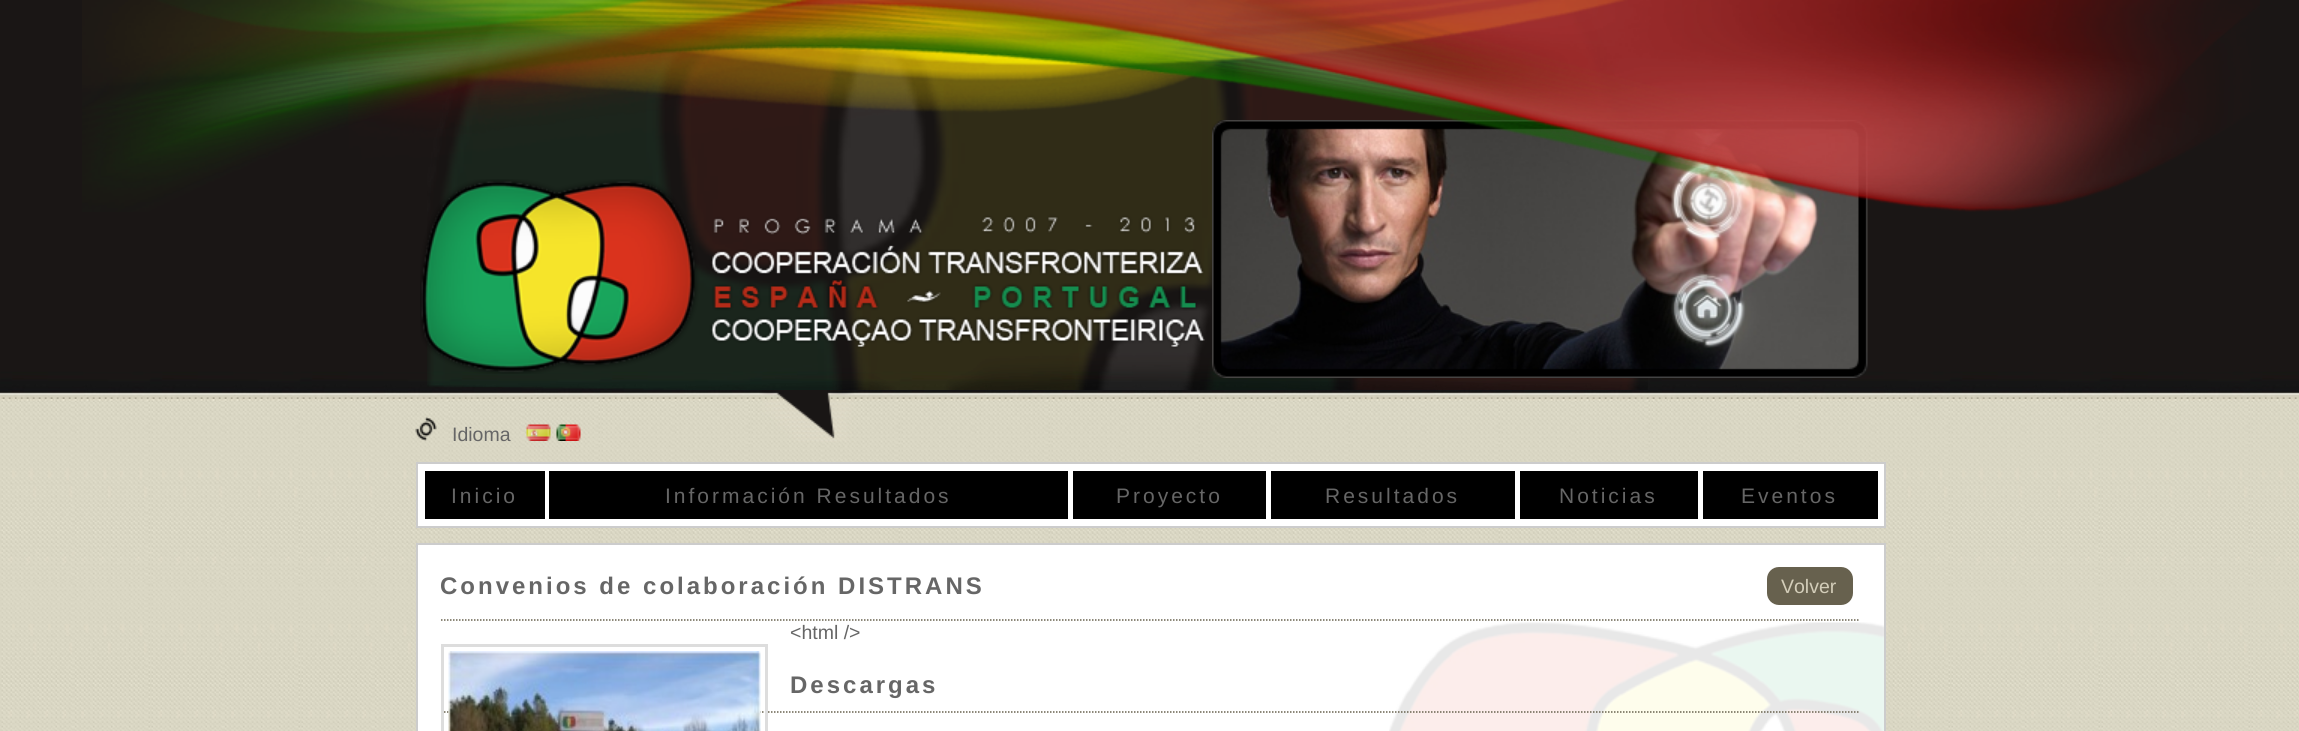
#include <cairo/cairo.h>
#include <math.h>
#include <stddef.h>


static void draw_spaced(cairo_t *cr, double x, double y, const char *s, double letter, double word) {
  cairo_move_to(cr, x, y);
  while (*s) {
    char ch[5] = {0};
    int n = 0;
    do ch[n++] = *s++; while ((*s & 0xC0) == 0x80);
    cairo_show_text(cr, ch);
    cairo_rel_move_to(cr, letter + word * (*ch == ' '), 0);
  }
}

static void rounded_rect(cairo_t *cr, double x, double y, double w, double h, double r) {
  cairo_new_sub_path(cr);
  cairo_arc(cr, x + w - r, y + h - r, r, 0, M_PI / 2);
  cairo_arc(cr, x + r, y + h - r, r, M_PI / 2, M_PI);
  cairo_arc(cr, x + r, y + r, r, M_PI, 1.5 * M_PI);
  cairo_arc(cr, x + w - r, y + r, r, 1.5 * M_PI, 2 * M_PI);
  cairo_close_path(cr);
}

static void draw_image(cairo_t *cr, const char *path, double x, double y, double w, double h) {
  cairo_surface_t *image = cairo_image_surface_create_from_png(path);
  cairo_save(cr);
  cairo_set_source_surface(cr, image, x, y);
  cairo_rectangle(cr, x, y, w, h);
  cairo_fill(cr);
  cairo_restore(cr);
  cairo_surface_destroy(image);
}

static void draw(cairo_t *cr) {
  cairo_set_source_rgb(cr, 1, 1, 1);
  cairo_paint(cr);
  draw_image(cr, "images/2.png", 0, 0, 2299, 731);
  draw_image(cr, "images/3.png", 427, 0, 1221, 390);
  draw_image(cr, "images/4.png", 420, 179, 785, 195);
  draw_image(cr, "images/5.png", 1212, 120, 656, 258);
  draw_image(cr, "images/1.png", 82, 0, 2178, 212);
  draw_image(cr, "images/6.png", 759, 390, 95, 52);
  draw_image(cr, "images/7.png", 415, 417, 22, 24);
  draw_image(cr, "images/8.png", 526, 424, 25, 17);
  draw_image(cr, "images/9.png", 556, 424, 25, 17);
  cairo_set_source_rgb(cr, 1, 1, 1);
  cairo_rectangle(cr, 417, 463, 1468, 64);
  cairo_fill_preserve(cr);
  cairo_set_source_rgb(cr, 204 / 255.0, 204 / 255.0, 204 / 255.0);
  cairo_stroke(cr);
  cairo_set_source_rgb(cr, 0, 0, 0);
  cairo_rectangle(cr, 425, 471, 120, 48);
  cairo_fill(cr);
  cairo_rectangle(cr, 549, 471, 519, 48);
  cairo_fill(cr);
  cairo_rectangle(cr, 1073, 471, 193, 48);
  cairo_fill(cr);
  cairo_rectangle(cr, 1271, 471, 244, 48);
  cairo_fill(cr);
  cairo_rectangle(cr, 1520, 471, 178, 48);
  cairo_fill(cr);
  cairo_rectangle(cr, 1703, 471, 175, 48);
  cairo_fill(cr);
  cairo_set_source_rgb(cr, 1, 1, 1);
  cairo_rectangle(cr, 418, 545, 1466, 186);
  cairo_fill(cr);
  draw_image(cr, "images/10.png", 1389, 622, 495, 109);
  cairo_rectangle(cr, 417, 544, 1468, 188);
  cairo_set_source_rgb(cr, 204 / 255.0, 204 / 255.0, 204 / 255.0);
  cairo_stroke(cr);
  cairo_set_source_rgb(cr, 103 / 255.0, 97 / 255.0, 78 / 255.0);
  rounded_rect(cr, 1767, 567, 86, 38, 12);
  cairo_fill(cr);
  cairo_new_path(cr);
  cairo_move_to(cr, 441, 620);
  cairo_line_to(cr, 1860, 620);
  cairo_set_line_width(cr, 1.5);
  cairo_set_dash(cr, (double[]){1.5, 1.5}, 2, 0);
  cairo_stroke(cr);
  cairo_new_path(cr);
  cairo_move_to(cr, 441, 712);
  cairo_line_to(cr, 1860, 712);
  cairo_stroke(cr);
  cairo_rectangle(cr, 442.5, 645.5, 324, 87);
  cairo_set_source_rgb(cr, 221 / 255.0, 221 / 255.0, 221 / 255.0);
  cairo_set_line_width(cr, 3);
  cairo_set_dash(cr, NULL, 0, 0);
  cairo_stroke(cr);
  draw_image(cr, "images/11.png", 448, 651, 313, 80);
  cairo_select_font_face(cr, "Liberation Sans", CAIRO_FONT_SLANT_NORMAL, CAIRO_FONT_WEIGHT_NORMAL);
  cairo_set_font_size(cr, 19.5);
  cairo_set_source_rgb(cr, 102 / 255.0, 102 / 255.0, 102 / 255.0);
  cairo_move_to(cr, 452, 441);
  cairo_show_text(cr, "Idioma");
  cairo_set_font_size(cr, 21);
  draw_spaced(cr, 451, 503, "Inicio", 3, 0);
  draw_spaced(cr, 665, 503, "Información Resultados", 3, 0);
  draw_spaced(cr, 1116, 503, "Proyecto", 3, 0);
  draw_spaced(cr, 1325, 503, "Resultados", 3, 0);
  draw_spaced(cr, 1559, 503, "Noticias", 3, 0);
  draw_spaced(cr, 1741, 503, "Eventos", 3, 0);
  cairo_select_font_face(cr, "Liberation Sans", CAIRO_FONT_SLANT_NORMAL, CAIRO_FONT_WEIGHT_BOLD);
  cairo_set_font_size(cr, 24);
  draw_spaced(cr, 440, 594, "Convenios de colaboración DISTRANS", 3, 0);
  cairo_select_font_face(cr, "Liberation Sans", CAIRO_FONT_SLANT_NORMAL, CAIRO_FONT_WEIGHT_NORMAL);
  cairo_set_font_size(cr, 19.5);
  cairo_set_source_rgb(cr, 211 / 255.0, 205 / 255.0, 185 / 255.0);
  cairo_move_to(cr, 1781, 593);
  cairo_show_text(cr, "Volver");
  cairo_set_source_rgb(cr, 102 / 255.0, 102 / 255.0, 102 / 255.0);
  cairo_move_to(cr, 790, 639);
  cairo_show_text(cr, "<html />");
  cairo_select_font_face(cr, "Liberation Sans", CAIRO_FONT_SLANT_NORMAL, CAIRO_FONT_WEIGHT_BOLD);
  cairo_set_font_size(cr, 24);
  draw_spaced(cr, 790, 693, "Descargas", 3, 0);
}

int main(void) {
  cairo_surface_t *surface = cairo_image_surface_create(CAIRO_FORMAT_RGB24, 2299, 731);
  cairo_t *cr = cairo_create(surface);
  cairo_font_options_t *options = cairo_font_options_create();
  cairo_font_options_set_hint_metrics(options, CAIRO_HINT_METRICS_OFF);
  cairo_font_options_set_hint_style(options, CAIRO_HINT_STYLE_NONE);
  cairo_set_font_options(cr, options);
  cairo_set_miter_limit(cr, 4);
  draw(cr);
  cairo_surface_write_to_png(surface, "out.png");
  cairo_font_options_destroy(options);
  cairo_destroy(cr);
  cairo_surface_destroy(surface);
  return 0;
}
